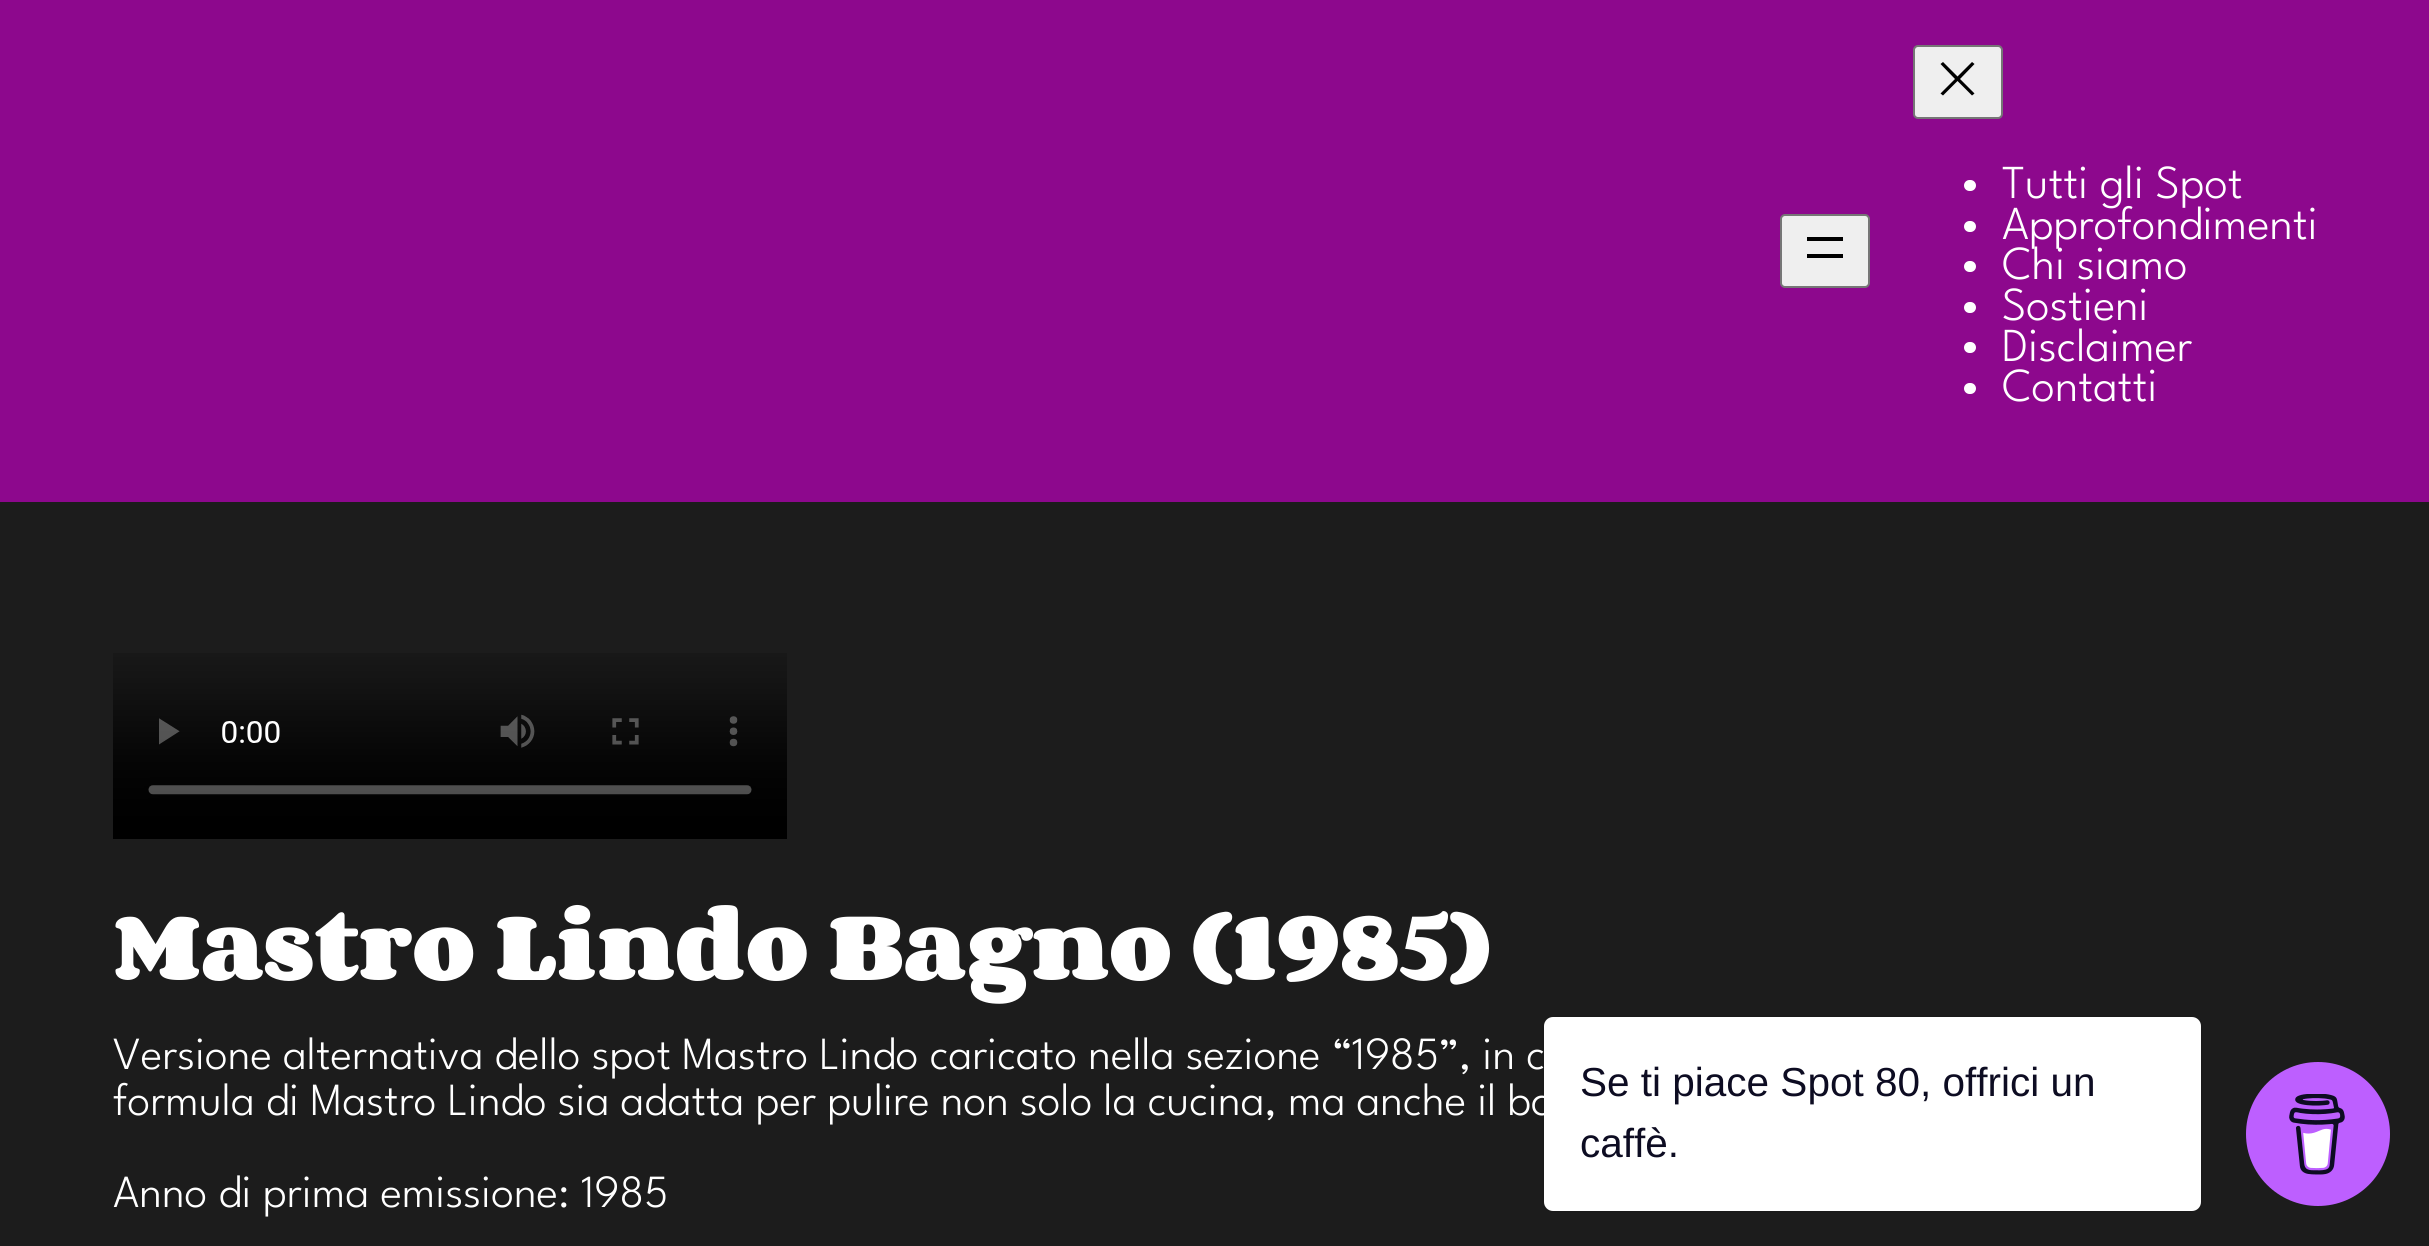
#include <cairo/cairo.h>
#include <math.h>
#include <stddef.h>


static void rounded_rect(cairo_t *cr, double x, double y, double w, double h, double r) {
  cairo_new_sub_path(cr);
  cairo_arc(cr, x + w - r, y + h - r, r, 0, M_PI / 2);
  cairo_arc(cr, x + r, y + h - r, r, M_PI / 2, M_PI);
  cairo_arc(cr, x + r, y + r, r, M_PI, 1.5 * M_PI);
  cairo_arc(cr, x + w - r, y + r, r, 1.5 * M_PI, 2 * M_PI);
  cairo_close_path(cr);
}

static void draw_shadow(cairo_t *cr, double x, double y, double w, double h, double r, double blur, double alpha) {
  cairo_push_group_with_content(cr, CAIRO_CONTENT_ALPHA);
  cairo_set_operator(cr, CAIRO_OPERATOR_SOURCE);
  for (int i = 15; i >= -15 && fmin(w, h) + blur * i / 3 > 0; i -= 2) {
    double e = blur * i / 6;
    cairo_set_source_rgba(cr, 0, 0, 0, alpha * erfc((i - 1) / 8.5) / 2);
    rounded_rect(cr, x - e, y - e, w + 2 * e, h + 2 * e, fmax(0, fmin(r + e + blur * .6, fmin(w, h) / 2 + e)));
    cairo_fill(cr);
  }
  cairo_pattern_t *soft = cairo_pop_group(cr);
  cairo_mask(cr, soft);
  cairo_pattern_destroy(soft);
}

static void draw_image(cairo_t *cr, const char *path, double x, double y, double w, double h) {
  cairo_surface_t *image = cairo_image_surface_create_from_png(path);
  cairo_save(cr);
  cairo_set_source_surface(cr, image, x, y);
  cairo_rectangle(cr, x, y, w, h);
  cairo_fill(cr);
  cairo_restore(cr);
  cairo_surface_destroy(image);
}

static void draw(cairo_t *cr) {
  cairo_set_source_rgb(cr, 28 / 255.0, 28 / 255.0, 28 / 255.0);
  cairo_paint(cr);
  cairo_set_source_rgb(cr, 141 / 255.0, 8 / 255.0, 141 / 255.0);
  cairo_rectangle(cr, 0, 0, 2429, 502);
  cairo_fill(cr);
  cairo_set_source_rgb(cr, 239 / 255.0, 239 / 255.0, 239 / 255.0);
  rounded_rect(cr, 1781, 215, 88, 72, 4);
  cairo_fill_preserve(cr);
  cairo_set_source_rgb(cr, 118 / 255.0, 118 / 255.0, 118 / 255.0);
  cairo_stroke(cr);
  cairo_set_source_rgb(cr, 0, 0, 0);
  cairo_rectangle(cr, 1807, 237, 36, 4);
  cairo_fill(cr);
  cairo_rectangle(cr, 1807, 254, 36, 4);
  cairo_fill(cr);
  cairo_set_source_rgb(cr, 239 / 255.0, 239 / 255.0, 239 / 255.0);
  rounded_rect(cr, 1914, 46, 88, 72, 4);
  cairo_fill_preserve(cr);
  cairo_set_source_rgb(cr, 118 / 255.0, 118 / 255.0, 118 / 255.0);
  cairo_stroke(cr);
  cairo_set_source_rgb(cr, 0, 0, 0);
  cairo_new_path(cr);
  cairo_move_to(cr, 1960, 79);
  cairo_line_to(cr, 1974.5, 64);
  cairo_line_to(cr, 1972, 62);
  cairo_line_to(cr, 1957.5, 76.5);
  cairo_line_to(cr, 1943, 62);
  cairo_line_to(cr, 1940.5, 64);
  cairo_line_to(cr, 1955, 79);
  cairo_line_to(cr, 1940.5, 93.5);
  cairo_line_to(cr, 1943, 95.5);
  cairo_line_to(cr, 1957.5, 81);
  cairo_line_to(cr, 1972, 95.5);
  cairo_line_to(cr, 1974.5, 93.5);
  cairo_close_path(cr);
  cairo_fill(cr);
  cairo_set_source_rgb(cr, 1, 1, 1);
  rounded_rect(cr, 1964, 180, 12, 11, 5.5);
  cairo_fill(cr);
  rounded_rect(cr, 1964, 221, 12, 11, 5.5);
  cairo_fill(cr);
  rounded_rect(cr, 1964, 261, 12, 11, 5.5);
  cairo_fill(cr);
  rounded_rect(cr, 1964, 302, 12, 11, 5.5);
  cairo_fill(cr);
  rounded_rect(cr, 1964, 342, 12, 11, 5.5);
  cairo_fill(cr);
  rounded_rect(cr, 1964, 383, 12, 11, 5.5);
  cairo_fill(cr);
  draw_image(cr, "images/1.png", 113, 653, 674, 186);
  cairo_set_source_rgb(cr, 189 / 255.0, 95 / 255.0, 1);
  cairo_arc(cr, 2318, 1134, 72, 0, 2 * M_PI);
  cairo_fill(cr);
  draw_image(cr, "images/2.png", 2289, 1094, 56, 81);
  cairo_set_source_rgb(cr, 0, 0, 0);
  draw_shadow(cr, 1544, 1017, 657, 194, 9, 2, 0.15);
  cairo_set_source_rgb(cr, 1, 1, 1);
  rounded_rect(cr, 1544, 1017, 657, 194, 9);
  cairo_fill(cr);
  cairo_select_font_face(cr, "League Spartan Light", CAIRO_FONT_SLANT_NORMAL, CAIRO_FONT_WEIGHT_NORMAL);
  cairo_set_font_size(cr, 47.25);
  cairo_move_to(cr, 2002, 198);
  cairo_show_text(cr, "Tutti gli Spot");
  cairo_move_to(cr, 2002, 239);
  cairo_show_text(cr, "Approfondimenti");
  cairo_move_to(cr, 2002, 279);
  cairo_show_text(cr, "Chi siamo");
  cairo_move_to(cr, 2002, 320);
  cairo_show_text(cr, "Sostieni");
  cairo_move_to(cr, 2002, 361);
  cairo_show_text(cr, "Disclaimer");
  cairo_move_to(cr, 2002, 401);
  cairo_show_text(cr, "Contatti");
  cairo_select_font_face(cr, "Corben", CAIRO_FONT_SLANT_NORMAL, CAIRO_FONT_WEIGHT_BOLD);
  cairo_set_font_size(cr, 81.4);
  cairo_move_to(cr, 113, 980);
  cairo_show_text(cr, "Mastro Lindo Bagno (1985)");
  cairo_select_font_face(cr, "League Spartan Light", CAIRO_FONT_SLANT_NORMAL, CAIRO_FONT_WEIGHT_NORMAL);
  cairo_set_font_size(cr, 46);
  cairo_move_to(cr, 113, 1069);
  cairo_show_text(cr, "Versione alternativa dello spot Mastro Lindo caricato nella sezione “1985”, in c");
  cairo_move_to(cr, 113, 1115);
  cairo_show_text(cr, "formula di Mastro Lindo sia adatta per pulire non solo la cucina, ma anche il ba");
  cairo_move_to(cr, 113, 1207);
  cairo_show_text(cr, "Anno di prima emissione: 1985");
  cairo_select_font_face(cr, "Liberation Sans", CAIRO_FONT_SLANT_NORMAL, CAIRO_FONT_WEIGHT_NORMAL);
  cairo_set_font_size(cr, 40.5);
  cairo_set_source_rgb(cr, 13 / 255.0, 12 / 255.0, 34 / 255.0);
  cairo_move_to(cr, 1580, 1096);
  cairo_show_text(cr, "Se ti piace Spot 80, offrici un");
  cairo_move_to(cr, 1580, 1157);
  cairo_show_text(cr, "caffè.");
}

int main(void) {
  cairo_surface_t *surface = cairo_image_surface_create(CAIRO_FORMAT_RGB24, 2429, 1246);
  cairo_t *cr = cairo_create(surface);
  cairo_font_options_t *options = cairo_font_options_create();
  cairo_font_options_set_hint_metrics(options, CAIRO_HINT_METRICS_OFF);
  cairo_font_options_set_hint_style(options, CAIRO_HINT_STYLE_NONE);
  cairo_set_font_options(cr, options);
  cairo_set_miter_limit(cr, 4);
  draw(cr);
  cairo_surface_write_to_png(surface, "out.png");
  cairo_font_options_destroy(options);
  cairo_destroy(cr);
  cairo_surface_destroy(surface);
  return 0;
}
